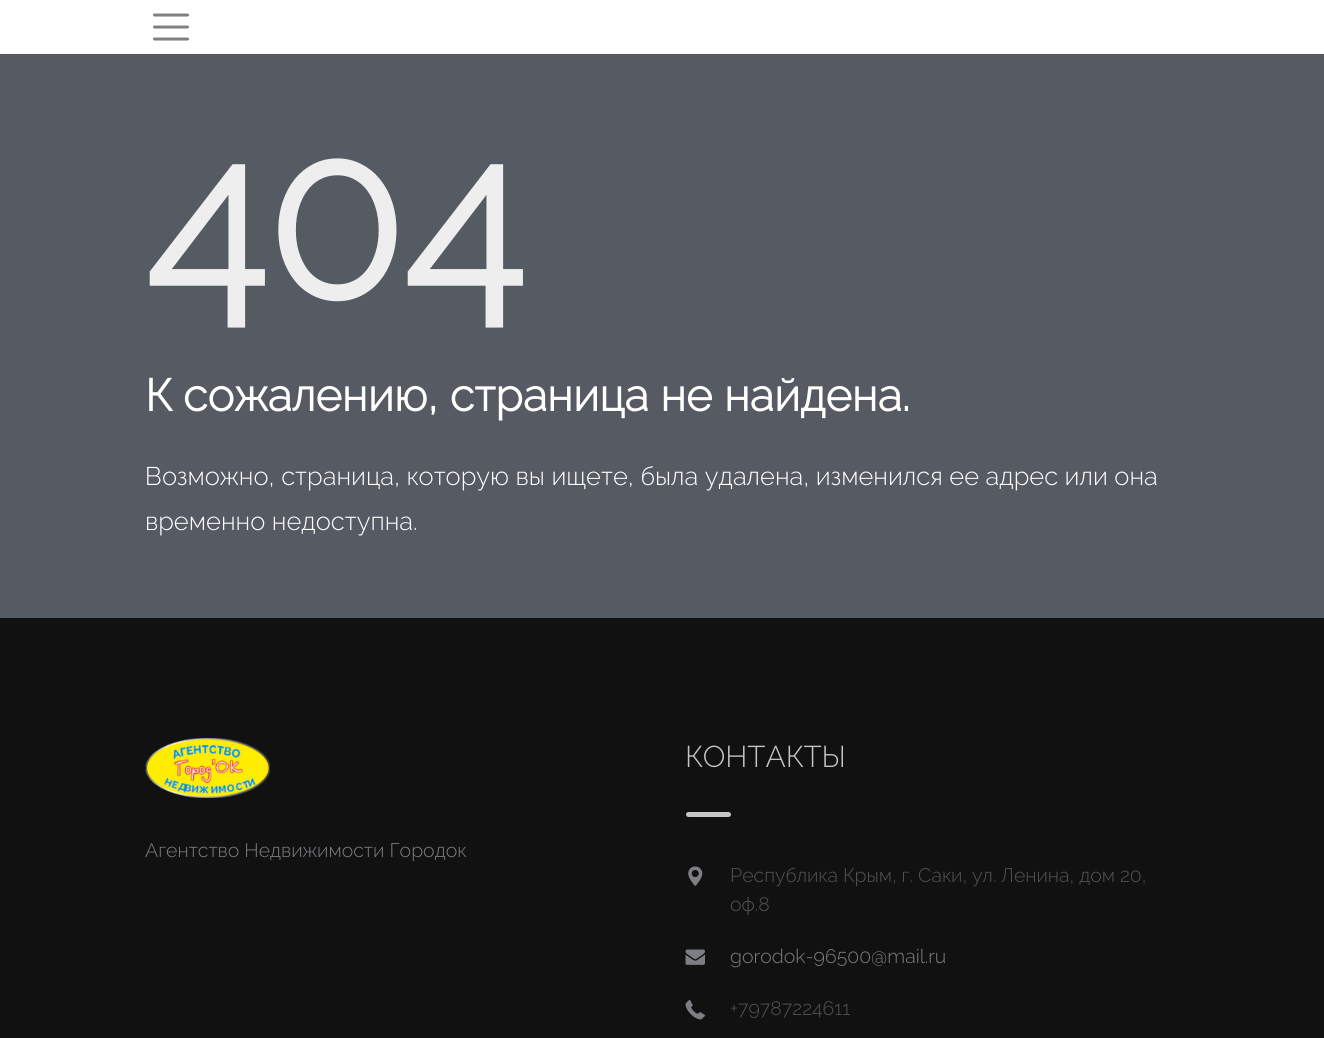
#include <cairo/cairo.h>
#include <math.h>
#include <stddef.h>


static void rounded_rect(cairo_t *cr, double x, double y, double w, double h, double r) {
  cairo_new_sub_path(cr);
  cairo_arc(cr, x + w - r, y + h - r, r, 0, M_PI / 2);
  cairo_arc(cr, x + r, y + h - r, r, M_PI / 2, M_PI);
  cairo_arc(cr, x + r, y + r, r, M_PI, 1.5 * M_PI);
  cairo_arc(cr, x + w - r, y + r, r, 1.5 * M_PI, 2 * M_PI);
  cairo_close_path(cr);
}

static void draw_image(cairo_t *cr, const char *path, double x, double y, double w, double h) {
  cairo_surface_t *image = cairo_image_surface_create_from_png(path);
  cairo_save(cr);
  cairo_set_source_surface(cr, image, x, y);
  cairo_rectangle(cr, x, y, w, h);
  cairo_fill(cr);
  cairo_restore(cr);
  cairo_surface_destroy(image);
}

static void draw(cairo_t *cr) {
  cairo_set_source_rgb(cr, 1, 1, 1);
  cairo_paint(cr);
  cairo_set_source_rgba(cr, 220 / 255.0, 220 / 255.0, 220 / 255.0, 0.2);
  cairo_rectangle(cr, 0, 53, 1324, 1);
  cairo_fill(cr);
  cairo_new_path(cr);
  cairo_move_to(cr, 154.5, 15);
  cairo_line_to(cr, 187.5, 15);
  cairo_move_to(cr, 154.5, 27);
  cairo_line_to(cr, 187.5, 27);
  cairo_move_to(cr, 154.5, 39);
  cairo_line_to(cr, 187.5, 39);
  cairo_set_source_rgb(cr, 128 / 255.0, 128 / 255.0, 128 / 255.0);
  cairo_set_line_width(cr, 3);
  cairo_set_line_cap(cr, CAIRO_LINE_CAP_ROUND);
  cairo_stroke(cr);
  cairo_set_source_rgb(cr, 86 / 255.0, 90 / 255.0, 98 / 255.0);
  cairo_rectangle(cr, 0, 54, 1324, 564);
  cairo_fill(cr);
  cairo_set_source_rgb(cr, 17 / 255.0, 17 / 255.0, 17 / 255.0);
  cairo_rectangle(cr, 0, 618, 1324, 420);
  cairo_fill(cr);
  draw_image(cr, "images/1.png", 145, 738, 125, 60);
  cairo_set_source_rgb(cr, 197 / 255.0, 197 / 255.0, 197 / 255.0);
  rounded_rect(cr, 686, 812, 45, 5, 2.5);
  cairo_fill(cr);
  draw_image(cr, "images/2.png", 688, 866, 15, 20);
  draw_image(cr, "images/3.png", 685, 949, 20, 16);
  draw_image(cr, "images/4.png", 685, 1000, 20, 20);
  cairo_select_font_face(cr, "Raleway", CAIRO_FONT_SLANT_NORMAL, CAIRO_FONT_WEIGHT_BOLD);
  cairo_set_font_size(cr, 225);
  cairo_set_source_rgb(cr, 238 / 255.0, 238 / 255.0, 238 / 255.0);
  cairo_move_to(cr, 145, 299);
  cairo_show_text(cr, "404");
  cairo_set_font_size(cr, 45);
  cairo_set_source_rgb(cr, 1, 1, 1);
  cairo_move_to(cr, 145, 411);
  cairo_show_text(cr, "К сожалению, страница не найдена.");
  cairo_select_font_face(cr, "Raleway Light", CAIRO_FONT_SLANT_NORMAL, CAIRO_FONT_WEIGHT_NORMAL);
  cairo_set_font_size(cr, 25.5);
  cairo_move_to(cr, 145, 485);
  cairo_show_text(cr, "Возможно, страница, которую вы ищете, была удалена, изменился ее адрес или она");
  cairo_move_to(cr, 145, 530);
  cairo_show_text(cr, "временно недоступна.");
  cairo_set_font_size(cr, 19.5);
  cairo_set_source_rgb(cr, 124 / 255.0, 126 / 255.0, 131 / 255.0);
  cairo_move_to(cr, 145, 857);
  cairo_show_text(cr, "Агентство Недвижимости Городок");
  cairo_set_font_size(cr, 30);
  cairo_set_source_rgb(cr, 197 / 255.0, 197 / 255.0, 197 / 255.0);
  cairo_move_to(cr, 685, 767);
  cairo_show_text(cr, "КОНТАКТЫ");
  cairo_set_font_size(cr, 19.5);
  cairo_set_source_rgb(cr, 83 / 255.0, 83 / 255.0, 83 / 255.0);
  cairo_move_to(cr, 730, 882);
  cairo_show_text(cr, "Республика Крым, г. Саки, ул. Ленина, дом 20,");
  cairo_move_to(cr, 730, 911);
  cairo_show_text(cr, "оф.8");
  cairo_set_source_rgb(cr, 124 / 255.0, 126 / 255.0, 131 / 255.0);
  cairo_move_to(cr, 730, 963);
  cairo_show_text(cr, "gorodok-96500@mail.ru");
  cairo_set_source_rgb(cr, 83 / 255.0, 83 / 255.0, 83 / 255.0);
  cairo_move_to(cr, 730, 1015);
  cairo_show_text(cr, "+79787224611");
}

int main(void) {
  cairo_surface_t *surface = cairo_image_surface_create(CAIRO_FORMAT_RGB24, 1324, 1038);
  cairo_t *cr = cairo_create(surface);
  cairo_font_options_t *options = cairo_font_options_create();
  cairo_font_options_set_hint_metrics(options, CAIRO_HINT_METRICS_OFF);
  cairo_font_options_set_hint_style(options, CAIRO_HINT_STYLE_NONE);
  cairo_set_font_options(cr, options);
  cairo_set_miter_limit(cr, 4);
  draw(cr);
  cairo_surface_write_to_png(surface, "out.png");
  cairo_font_options_destroy(options);
  cairo_destroy(cr);
  cairo_surface_destroy(surface);
  return 0;
}
